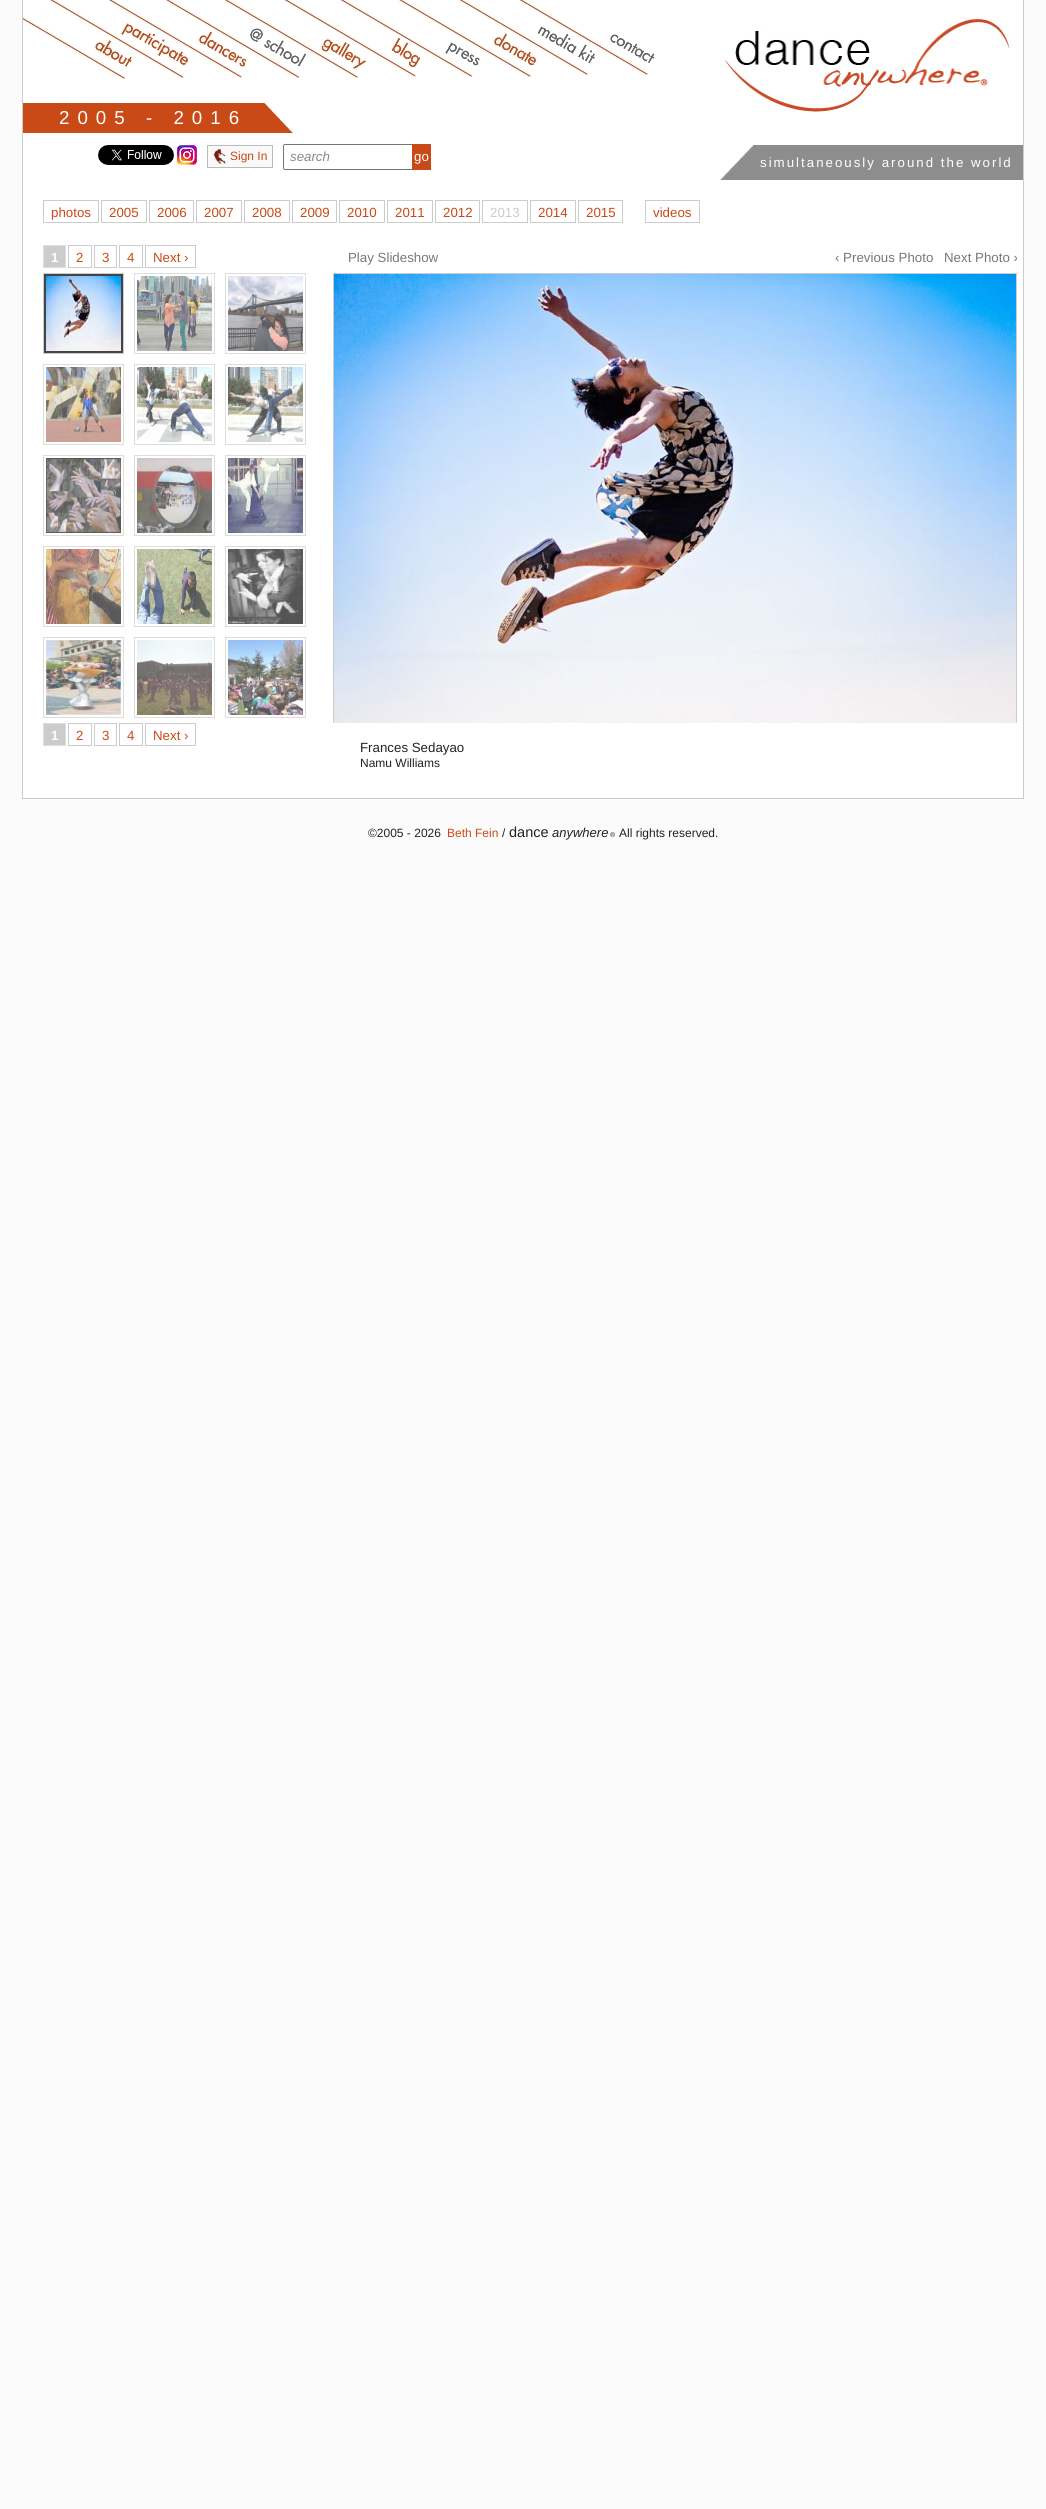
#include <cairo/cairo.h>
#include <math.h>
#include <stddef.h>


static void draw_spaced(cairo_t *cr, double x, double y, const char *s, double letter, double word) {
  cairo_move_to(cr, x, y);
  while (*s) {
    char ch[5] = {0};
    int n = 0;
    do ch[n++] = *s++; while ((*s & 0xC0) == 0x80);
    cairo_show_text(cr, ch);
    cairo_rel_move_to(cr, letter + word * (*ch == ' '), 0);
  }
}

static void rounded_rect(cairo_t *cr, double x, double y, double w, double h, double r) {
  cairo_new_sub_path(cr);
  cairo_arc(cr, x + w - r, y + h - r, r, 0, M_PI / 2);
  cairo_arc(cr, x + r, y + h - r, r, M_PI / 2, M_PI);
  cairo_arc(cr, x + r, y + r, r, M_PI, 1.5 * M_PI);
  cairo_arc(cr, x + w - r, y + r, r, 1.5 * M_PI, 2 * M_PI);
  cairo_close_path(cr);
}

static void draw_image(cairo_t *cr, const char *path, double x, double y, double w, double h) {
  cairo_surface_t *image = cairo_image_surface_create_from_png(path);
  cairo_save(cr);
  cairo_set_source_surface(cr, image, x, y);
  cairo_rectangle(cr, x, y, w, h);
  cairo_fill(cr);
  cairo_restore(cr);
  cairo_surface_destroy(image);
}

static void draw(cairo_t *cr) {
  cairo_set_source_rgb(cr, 251 / 255.0, 251 / 255.0, 251 / 255.0);
  cairo_paint(cr);
  cairo_set_source_rgb(cr, 1, 1, 1);
  cairo_rectangle(cr, 23, 0, 1000, 798);
  cairo_fill(cr);
  cairo_set_source_rgb(cr, 204 / 255.0, 204 / 255.0, 204 / 255.0);
  cairo_rectangle(cr, 1023, 0, 1, 799);
  cairo_fill(cr);
  cairo_rectangle(cr, 22, 798, 1002, 1);
  cairo_fill(cr);
  cairo_rectangle(cr, 22, 0, 1, 799);
  cairo_fill(cr);
  draw_image(cr, "images/1.png", 23, 0, 632, 80);
  draw_image(cr, "images/2.png", 725, 19, 288, 93);
  cairo_set_source_rgb(cr, 201 / 255.0, 73 / 255.0, 23 / 255.0);
  cairo_rectangle(cr, 23, 103, 270, 30);
  cairo_fill(cr);
  draw_image(cr, "images/3.png", 264, 103, 29, 30);
  draw_image(cr, "images/4.png", 98, 145, 76, 20);
  draw_image(cr, "images/5.png", 177, 145, 20, 20);
  cairo_set_source_rgb(cr, 249 / 255.0, 249 / 255.0, 249 / 255.0);
  cairo_rectangle(cr, 207.5, 145.5, 65, 22);
  cairo_fill_preserve(cr);
  cairo_set_source_rgb(cr, 187 / 255.0, 187 / 255.0, 187 / 255.0);
  cairo_set_line_width(cr, 1);
  cairo_stroke(cr);
  draw_image(cr, "images/6.png", 213, 149, 13, 15);
  rounded_rect(cr, 283.5, 144.5, 131, 25, 1.5);
  cairo_set_source_rgb(cr, 118 / 255.0, 118 / 255.0, 118 / 255.0);
  cairo_stroke(cr);
  cairo_set_source_rgb(cr, 201 / 255.0, 73 / 255.0, 23 / 255.0);
  cairo_rectangle(cr, 412, 144, 19, 26);
  cairo_fill(cr);
  cairo_set_source_rgb(cr, 141 / 255.0, 141 / 255.0, 141 / 255.0);
  cairo_rectangle(cr, 720, 145, 303, 35);
  cairo_fill(cr);
  draw_image(cr, "images/7.png", 720, 145, 33, 35);
  cairo_rectangle(cr, 43.5, 200.5, 55, 22);
  cairo_set_source_rgb(cr, 204 / 255.0, 204 / 255.0, 204 / 255.0);
  cairo_stroke(cr);
  cairo_rectangle(cr, 101.5, 200.5, 45, 22);
  cairo_stroke(cr);
  cairo_rectangle(cr, 149.5, 200.5, 44, 22);
  cairo_stroke(cr);
  cairo_rectangle(cr, 196.5, 200.5, 45, 22);
  cairo_stroke(cr);
  cairo_rectangle(cr, 244.5, 200.5, 45, 22);
  cairo_stroke(cr);
  cairo_rectangle(cr, 292.5, 200.5, 44, 22);
  cairo_stroke(cr);
  cairo_rectangle(cr, 339.5, 200.5, 45, 22);
  cairo_stroke(cr);
  cairo_rectangle(cr, 387.5, 200.5, 45, 22);
  cairo_stroke(cr);
  cairo_rectangle(cr, 435.5, 200.5, 44, 22);
  cairo_stroke(cr);
  cairo_rectangle(cr, 482.5, 200.5, 45, 22);
  cairo_stroke(cr);
  cairo_rectangle(cr, 530.5, 200.5, 45, 22);
  cairo_stroke(cr);
  cairo_rectangle(cr, 578.5, 200.5, 44, 22);
  cairo_stroke(cr);
  cairo_rectangle(cr, 645.5, 200.5, 54, 22);
  cairo_stroke(cr);
  cairo_rectangle(cr, 43.5, 245.5, 22, 22);
  cairo_fill_preserve(cr);
  cairo_set_source_rgb(cr, 221 / 255.0, 221 / 255.0, 221 / 255.0);
  cairo_stroke(cr);
  cairo_rectangle(cr, 68.5, 245.5, 23, 22);
  cairo_set_source_rgb(cr, 204 / 255.0, 204 / 255.0, 204 / 255.0);
  cairo_stroke(cr);
  cairo_rectangle(cr, 94.5, 245.5, 22, 22);
  cairo_stroke(cr);
  cairo_rectangle(cr, 119.5, 245.5, 23, 22);
  cairo_stroke(cr);
  cairo_rectangle(cr, 145.5, 245.5, 50, 22);
  cairo_stroke(cr);
  cairo_set_source_rgb(cr, 68 / 255.0, 68 / 255.0, 68 / 255.0);
  cairo_rectangle(cr, 43.5, 273.5, 80, 80);
  cairo_fill_preserve(cr);
  cairo_set_source_rgb(cr, 204 / 255.0, 204 / 255.0, 204 / 255.0);
  cairo_stroke(cr);
  draw_image(cr, "images/8.png", 46, 276, 75, 75);
  cairo_rectangle(cr, 134.5, 273.5, 80, 80);
  cairo_set_source_rgb(cr, 221 / 255.0, 221 / 255.0, 221 / 255.0);
  cairo_stroke(cr);
  draw_image(cr, "images/9.png", 137, 276, 75, 75);
  cairo_rectangle(cr, 225.5, 273.5, 80, 80);
  cairo_stroke(cr);
  draw_image(cr, "images/10.png", 228, 276, 75, 75);
  cairo_rectangle(cr, 43.5, 364.5, 80, 80);
  cairo_stroke(cr);
  draw_image(cr, "images/11.png", 46, 367, 75, 75);
  cairo_rectangle(cr, 134.5, 364.5, 80, 80);
  cairo_stroke(cr);
  draw_image(cr, "images/12.png", 137, 367, 75, 75);
  cairo_rectangle(cr, 225.5, 364.5, 80, 80);
  cairo_stroke(cr);
  draw_image(cr, "images/13.png", 228, 367, 75, 75);
  cairo_rectangle(cr, 43.5, 455.5, 80, 80);
  cairo_stroke(cr);
  draw_image(cr, "images/14.png", 46, 458, 75, 75);
  cairo_rectangle(cr, 134.5, 455.5, 80, 80);
  cairo_stroke(cr);
  draw_image(cr, "images/15.png", 137, 458, 75, 75);
  cairo_rectangle(cr, 225.5, 455.5, 80, 80);
  cairo_stroke(cr);
  draw_image(cr, "images/16.png", 228, 458, 75, 75);
  cairo_rectangle(cr, 43.5, 546.5, 80, 80);
  cairo_stroke(cr);
  draw_image(cr, "images/17.png", 46, 549, 75, 75);
  cairo_rectangle(cr, 134.5, 546.5, 80, 80);
  cairo_stroke(cr);
  draw_image(cr, "images/18.png", 137, 549, 75, 75);
  cairo_rectangle(cr, 225.5, 546.5, 80, 80);
  cairo_stroke(cr);
  draw_image(cr, "images/19.png", 228, 549, 75, 75);
  cairo_rectangle(cr, 43.5, 637.5, 80, 80);
  cairo_stroke(cr);
  draw_image(cr, "images/20.png", 46, 640, 75, 75);
  cairo_rectangle(cr, 134.5, 637.5, 80, 80);
  cairo_stroke(cr);
  draw_image(cr, "images/21.png", 137, 640, 75, 75);
  cairo_rectangle(cr, 225.5, 637.5, 80, 80);
  cairo_stroke(cr);
  draw_image(cr, "images/22.png", 228, 640, 75, 75);
  cairo_set_source_rgb(cr, 204 / 255.0, 204 / 255.0, 204 / 255.0);
  cairo_rectangle(cr, 43.5, 723.5, 22, 22);
  cairo_fill_preserve(cr);
  cairo_set_source_rgb(cr, 221 / 255.0, 221 / 255.0, 221 / 255.0);
  cairo_stroke(cr);
  cairo_rectangle(cr, 68.5, 723.5, 23, 22);
  cairo_set_source_rgb(cr, 204 / 255.0, 204 / 255.0, 204 / 255.0);
  cairo_stroke(cr);
  cairo_rectangle(cr, 94.5, 723.5, 22, 22);
  cairo_stroke(cr);
  cairo_rectangle(cr, 119.5, 723.5, 23, 22);
  cairo_stroke(cr);
  cairo_rectangle(cr, 145.5, 723.5, 50, 22);
  cairo_stroke(cr);
  cairo_save(cr);
  cairo_rectangle(cr, 323, 273, 700, 450);
  cairo_clip(cr);
  cairo_rectangle(cr, 333.5, 273.5, 683, 451);
  cairo_stroke(cr);
  cairo_restore(cr);
  draw_image(cr, "images/23.png", 334, 274, 682, 449);
  cairo_select_font_face(cr, "Liberation Sans", CAIRO_FONT_SLANT_NORMAL, CAIRO_FONT_WEIGHT_NORMAL);
  cairo_set_font_size(cr, 18.75);
  cairo_set_source_rgb(cr, 1, 1, 1);
  draw_spaced(cr, 59, 124, "2005 - 2016", 8, 0);
  cairo_set_font_size(cr, 12);
  cairo_set_source_rgb(cr, 201 / 255.0, 73 / 255.0, 23 / 255.0);
  cairo_move_to(cr, 230, 160);
  cairo_show_text(cr, "Sign In");
  cairo_select_font_face(cr, "Liberation Sans", CAIRO_FONT_SLANT_ITALIC, CAIRO_FONT_WEIGHT_NORMAL);
  cairo_set_font_size(cr, 13.3);
  cairo_set_source_rgb(cr, 136 / 255.0, 136 / 255.0, 136 / 255.0);
  cairo_move_to(cr, 290, 161);
  cairo_show_text(cr, "search");
  cairo_select_font_face(cr, "Liberation Sans", CAIRO_FONT_SLANT_NORMAL, CAIRO_FONT_WEIGHT_NORMAL);
  cairo_set_source_rgb(cr, 1, 1, 1);
  cairo_move_to(cr, 414, 161);
  cairo_show_text(cr, "go");
  draw_spaced(cr, 760, 167, "simultaneously around the world", 2, 0);
  cairo_set_source_rgb(cr, 201 / 255.0, 73 / 255.0, 23 / 255.0);
  cairo_move_to(cr, 51, 217);
  cairo_show_text(cr, "photos");
  cairo_move_to(cr, 109, 217);
  cairo_show_text(cr, "2005");
  cairo_move_to(cr, 157, 217);
  cairo_show_text(cr, "2006");
  cairo_move_to(cr, 204, 217);
  cairo_show_text(cr, "2007");
  cairo_move_to(cr, 252, 217);
  cairo_show_text(cr, "2008");
  cairo_move_to(cr, 300, 217);
  cairo_show_text(cr, "2009");
  cairo_move_to(cr, 347, 217);
  cairo_show_text(cr, "2010");
  cairo_move_to(cr, 395, 217);
  cairo_show_text(cr, "2011");
  cairo_move_to(cr, 443, 217);
  cairo_show_text(cr, "2012");
  cairo_set_source_rgb(cr, 204 / 255.0, 204 / 255.0, 204 / 255.0);
  cairo_move_to(cr, 490, 217);
  cairo_show_text(cr, "2013");
  cairo_set_source_rgb(cr, 201 / 255.0, 73 / 255.0, 23 / 255.0);
  cairo_move_to(cr, 538, 217);
  cairo_show_text(cr, "2014");
  cairo_move_to(cr, 586, 217);
  cairo_show_text(cr, "2015");
  cairo_move_to(cr, 653, 217);
  cairo_show_text(cr, "videos");
  cairo_select_font_face(cr, "Liberation Sans", CAIRO_FONT_SLANT_NORMAL, CAIRO_FONT_WEIGHT_BOLD);
  cairo_set_source_rgb(cr, 1, 1, 1);
  cairo_move_to(cr, 51, 262);
  cairo_show_text(cr, "1");
  cairo_select_font_face(cr, "Liberation Sans", CAIRO_FONT_SLANT_NORMAL, CAIRO_FONT_WEIGHT_NORMAL);
  cairo_set_source_rgb(cr, 201 / 255.0, 73 / 255.0, 23 / 255.0);
  cairo_move_to(cr, 76, 262);
  cairo_show_text(cr, "2");
  cairo_move_to(cr, 102, 262);
  cairo_show_text(cr, "3");
  cairo_move_to(cr, 127, 262);
  cairo_show_text(cr, "4");
  cairo_move_to(cr, 153, 262);
  cairo_show_text(cr, "Next ›");
  cairo_select_font_face(cr, "Liberation Sans", CAIRO_FONT_SLANT_NORMAL, CAIRO_FONT_WEIGHT_BOLD);
  cairo_set_source_rgb(cr, 1, 1, 1);
  cairo_move_to(cr, 51, 740);
  cairo_show_text(cr, "1");
  cairo_select_font_face(cr, "Liberation Sans", CAIRO_FONT_SLANT_NORMAL, CAIRO_FONT_WEIGHT_NORMAL);
  cairo_set_source_rgb(cr, 201 / 255.0, 73 / 255.0, 23 / 255.0);
  cairo_move_to(cr, 76, 740);
  cairo_show_text(cr, "2");
  cairo_move_to(cr, 102, 740);
  cairo_show_text(cr, "3");
  cairo_move_to(cr, 127, 740);
  cairo_show_text(cr, "4");
  cairo_move_to(cr, 153, 740);
  cairo_show_text(cr, "Next ›");
  cairo_set_source_rgb(cr, 119 / 255.0, 119 / 255.0, 119 / 255.0);
  cairo_move_to(cr, 348, 262);
  cairo_show_text(cr, "Play Slideshow");
  cairo_move_to(cr, 835, 262);
  cairo_show_text(cr, "‹ Previous Photo");
  cairo_move_to(cr, 944, 262);
  cairo_show_text(cr, "Next Photo ›");
  cairo_set_source_rgb(cr, 34 / 255.0, 34 / 255.0, 34 / 255.0);
  cairo_move_to(cr, 360, 752);
  cairo_show_text(cr, "Frances Sedayao");
  cairo_set_font_size(cr, 12);
  cairo_move_to(cr, 360, 767);
  cairo_show_text(cr, "Namu Williams");
  cairo_move_to(cr, 368, 837);
  cairo_show_text(cr, "©2005 - 2026");
  cairo_set_source_rgb(cr, 201 / 255.0, 73 / 255.0, 23 / 255.0);
  cairo_move_to(cr, 447, 837);
  cairo_show_text(cr, "Beth Fein");
  cairo_set_source_rgb(cr, 34 / 255.0, 34 / 255.0, 34 / 255.0);
  cairo_move_to(cr, 502, 837);
  cairo_show_text(cr, "/");
  cairo_set_font_size(cr, 14.5);
  cairo_move_to(cr, 509, 837);
  cairo_show_text(cr, "dance");
  cairo_select_font_face(cr, "Liberation Sans", CAIRO_FONT_SLANT_ITALIC, CAIRO_FONT_WEIGHT_NORMAL);
  cairo_set_font_size(cr, 13);
  cairo_move_to(cr, 552, 837);
  cairo_show_text(cr, "anywhere");
  cairo_select_font_face(cr, "Liberation Sans", CAIRO_FONT_SLANT_NORMAL, CAIRO_FONT_WEIGHT_NORMAL);
  cairo_set_font_size(cr, 7);
  cairo_move_to(cr, 610, 837);
  cairo_show_text(cr, "®");
  cairo_set_font_size(cr, 12);
  cairo_move_to(cr, 619, 837);
  cairo_show_text(cr, "All rights reserved.");
}

int main(void) {
  cairo_surface_t *surface = cairo_image_surface_create(CAIRO_FORMAT_RGB24, 1046, 2509);
  cairo_t *cr = cairo_create(surface);
  cairo_font_options_t *options = cairo_font_options_create();
  cairo_font_options_set_hint_metrics(options, CAIRO_HINT_METRICS_OFF);
  cairo_font_options_set_hint_style(options, CAIRO_HINT_STYLE_NONE);
  cairo_set_font_options(cr, options);
  cairo_set_miter_limit(cr, 4);
  draw(cr);
  cairo_surface_write_to_png(surface, "out.png");
  cairo_font_options_destroy(options);
  cairo_destroy(cr);
  cairo_surface_destroy(surface);
  return 0;
}
